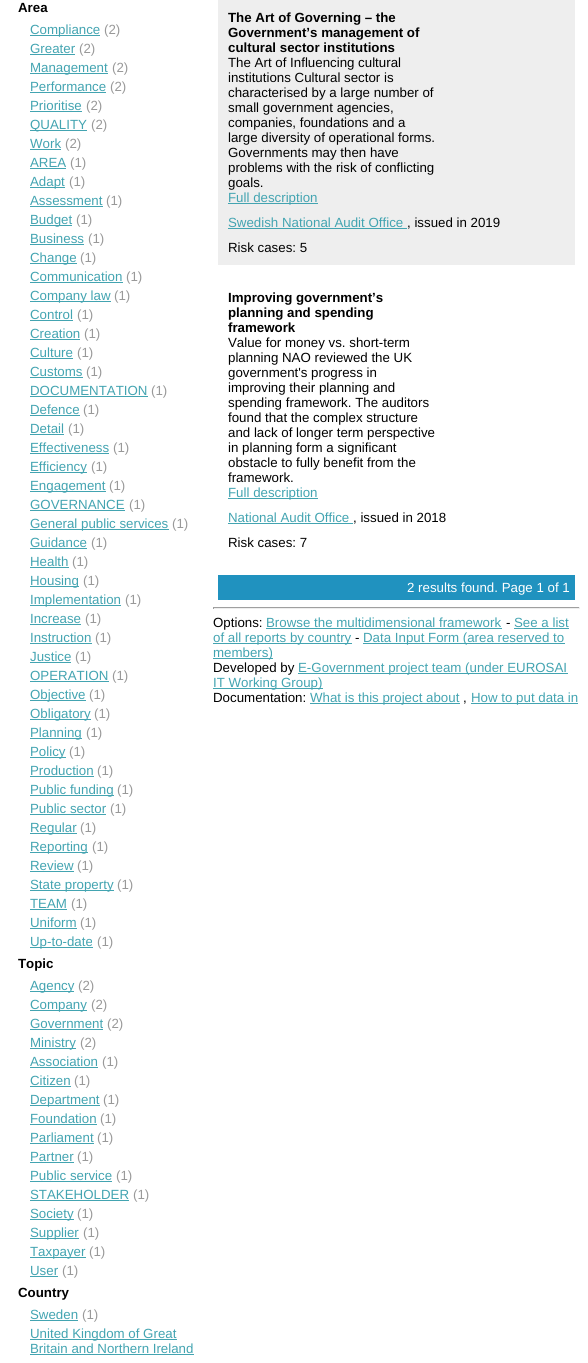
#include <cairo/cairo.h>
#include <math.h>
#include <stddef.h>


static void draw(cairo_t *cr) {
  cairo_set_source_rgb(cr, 1, 1, 1);
  cairo_paint(cr);
  cairo_set_source_rgb(cr, 67 / 255.0, 164 / 255.0, 177 / 255.0);
  cairo_rectangle(cr, 30, 35, 70, 1);
  cairo_fill(cr);
  cairo_rectangle(cr, 30, 54, 45, 1);
  cairo_fill(cr);
  cairo_rectangle(cr, 30, 73, 78, 1);
  cairo_fill(cr);
  cairo_rectangle(cr, 30, 92, 76, 1);
  cairo_fill(cr);
  cairo_rectangle(cr, 30, 111, 52, 1);
  cairo_fill(cr);
  cairo_rectangle(cr, 30, 130, 57, 1);
  cairo_fill(cr);
  cairo_rectangle(cr, 30, 149, 31, 1);
  cairo_fill(cr);
  cairo_rectangle(cr, 30, 168, 36, 1);
  cairo_fill(cr);
  cairo_rectangle(cr, 30, 187, 35, 1);
  cairo_fill(cr);
  cairo_rectangle(cr, 30, 206, 73, 1);
  cairo_fill(cr);
  cairo_rectangle(cr, 30, 225, 42, 1);
  cairo_fill(cr);
  cairo_rectangle(cr, 30, 244, 54, 1);
  cairo_fill(cr);
  cairo_rectangle(cr, 30, 263, 47, 1);
  cairo_fill(cr);
  cairo_rectangle(cr, 30, 282, 93, 1);
  cairo_fill(cr);
  cairo_rectangle(cr, 30, 301, 81, 1);
  cairo_fill(cr);
  cairo_rectangle(cr, 30, 320, 43, 1);
  cairo_fill(cr);
  cairo_rectangle(cr, 30, 339, 50, 1);
  cairo_fill(cr);
  cairo_rectangle(cr, 30, 358, 43, 1);
  cairo_fill(cr);
  cairo_rectangle(cr, 30, 377, 53, 1);
  cairo_fill(cr);
  cairo_rectangle(cr, 30, 396, 118, 1);
  cairo_fill(cr);
  cairo_rectangle(cr, 30, 415, 50, 1);
  cairo_fill(cr);
  cairo_rectangle(cr, 30, 434, 34, 1);
  cairo_fill(cr);
  cairo_rectangle(cr, 30, 453, 79, 1);
  cairo_fill(cr);
  cairo_rectangle(cr, 30, 472, 57, 1);
  cairo_fill(cr);
  cairo_rectangle(cr, 30, 491, 76, 1);
  cairo_fill(cr);
  cairo_rectangle(cr, 30, 510, 95, 1);
  cairo_fill(cr);
  cairo_rectangle(cr, 30, 529, 139, 1);
  cairo_fill(cr);
  cairo_rectangle(cr, 30, 548, 57, 1);
  cairo_fill(cr);
  cairo_rectangle(cr, 30, 567, 39, 1);
  cairo_fill(cr);
  cairo_rectangle(cr, 30, 586, 49, 1);
  cairo_fill(cr);
  cairo_rectangle(cr, 30, 605, 91, 1);
  cairo_fill(cr);
  cairo_rectangle(cr, 30, 624, 51, 1);
  cairo_fill(cr);
  cairo_rectangle(cr, 30, 643, 62, 1);
  cairo_fill(cr);
  cairo_rectangle(cr, 30, 662, 41, 1);
  cairo_fill(cr);
  cairo_rectangle(cr, 30, 681, 79, 1);
  cairo_fill(cr);
  cairo_rectangle(cr, 30, 700, 56, 1);
  cairo_fill(cr);
  cairo_rectangle(cr, 30, 719, 61, 1);
  cairo_fill(cr);
  cairo_rectangle(cr, 30, 738, 52, 1);
  cairo_fill(cr);
  cairo_rectangle(cr, 30, 757, 36, 1);
  cairo_fill(cr);
  cairo_rectangle(cr, 30, 776, 64, 1);
  cairo_fill(cr);
  cairo_rectangle(cr, 30, 795, 84, 1);
  cairo_fill(cr);
  cairo_rectangle(cr, 30, 814, 76, 1);
  cairo_fill(cr);
  cairo_rectangle(cr, 30, 833, 47, 1);
  cairo_fill(cr);
  cairo_rectangle(cr, 30, 852, 58, 1);
  cairo_fill(cr);
  cairo_rectangle(cr, 30, 871, 44, 1);
  cairo_fill(cr);
  cairo_rectangle(cr, 30, 890, 84, 1);
  cairo_fill(cr);
  cairo_rectangle(cr, 30, 909, 37, 1);
  cairo_fill(cr);
  cairo_rectangle(cr, 30, 928, 47, 1);
  cairo_fill(cr);
  cairo_rectangle(cr, 30, 947, 63, 1);
  cairo_fill(cr);
  cairo_rectangle(cr, 30, 991, 44, 1);
  cairo_fill(cr);
  cairo_rectangle(cr, 30, 1010, 57, 1);
  cairo_fill(cr);
  cairo_rectangle(cr, 30, 1029, 73, 1);
  cairo_fill(cr);
  cairo_rectangle(cr, 30, 1048, 46, 1);
  cairo_fill(cr);
  cairo_rectangle(cr, 30, 1067, 68, 1);
  cairo_fill(cr);
  cairo_rectangle(cr, 30, 1086, 41, 1);
  cairo_fill(cr);
  cairo_rectangle(cr, 30, 1105, 70, 1);
  cairo_fill(cr);
  cairo_rectangle(cr, 30, 1124, 67, 1);
  cairo_fill(cr);
  cairo_rectangle(cr, 30, 1143, 64, 1);
  cairo_fill(cr);
  cairo_rectangle(cr, 30, 1162, 44, 1);
  cairo_fill(cr);
  cairo_rectangle(cr, 30, 1181, 82, 1);
  cairo_fill(cr);
  cairo_rectangle(cr, 30, 1200, 99, 1);
  cairo_fill(cr);
  cairo_rectangle(cr, 30, 1219, 44, 1);
  cairo_fill(cr);
  cairo_rectangle(cr, 30, 1238, 49, 1);
  cairo_fill(cr);
  cairo_rectangle(cr, 30, 1257, 56, 1);
  cairo_fill(cr);
  cairo_rectangle(cr, 30, 1276, 28, 1);
  cairo_fill(cr);
  cairo_rectangle(cr, 30, 1320, 48, 1);
  cairo_fill(cr);
  cairo_rectangle(cr, 30, 1339, 147, 1);
  cairo_fill(cr);
  cairo_rectangle(cr, 30, 1354, 164, 1);
  cairo_fill(cr);
  cairo_set_source_rgb(cr, 238 / 255.0, 238 / 255.0, 238 / 255.0);
  cairo_rectangle(cr, 218, 0, 357, 265);
  cairo_fill(cr);
  cairo_set_source_rgb(cr, 67 / 255.0, 164 / 255.0, 177 / 255.0);
  cairo_rectangle(cr, 228, 203, 90, 1);
  cairo_fill(cr);
  cairo_rectangle(cr, 228, 228, 179, 1);
  cairo_fill(cr);
  cairo_rectangle(cr, 228, 498, 90, 1);
  cairo_fill(cr);
  cairo_rectangle(cr, 228, 523, 125, 1);
  cairo_fill(cr);
  cairo_set_source_rgb(cr, 32 / 255.0, 146 / 255.0, 191 / 255.0);
  cairo_rectangle(cr, 218, 575, 357, 25);
  cairo_fill(cr);
  cairo_set_source_rgb(cr, 159 / 255.0, 159 / 255.0, 159 / 255.0);
  cairo_rectangle(cr, 213, 607, 367, 1);
  cairo_fill(cr);
  cairo_set_source_rgb(cr, 238 / 255.0, 238 / 255.0, 238 / 255.0);
  cairo_rectangle(cr, 579, 607, 1, 2);
  cairo_fill(cr);
  cairo_rectangle(cr, 213, 608, 367, 1);
  cairo_fill(cr);
  cairo_set_source_rgb(cr, 159 / 255.0, 159 / 255.0, 159 / 255.0);
  cairo_rectangle(cr, 213, 607, 1, 2);
  cairo_fill(cr);
  cairo_set_source_rgb(cr, 67 / 255.0, 164 / 255.0, 177 / 255.0);
  cairo_rectangle(cr, 266, 628, 236, 1);
  cairo_fill(cr);
  cairo_rectangle(cr, 514, 628, 55, 1);
  cairo_fill(cr);
  cairo_rectangle(cr, 213, 643, 139, 1);
  cairo_fill(cr);
  cairo_rectangle(cr, 363, 643, 202, 1);
  cairo_fill(cr);
  cairo_rectangle(cr, 213, 658, 60, 1);
  cairo_fill(cr);
  cairo_rectangle(cr, 298, 673, 270, 1);
  cairo_fill(cr);
  cairo_rectangle(cr, 213, 688, 110, 1);
  cairo_fill(cr);
  cairo_rectangle(cr, 310, 703, 150, 1);
  cairo_fill(cr);
  cairo_rectangle(cr, 471, 703, 107, 1);
  cairo_fill(cr);
  cairo_select_font_face(cr, "Liberation Sans", CAIRO_FONT_SLANT_NORMAL, CAIRO_FONT_WEIGHT_BOLD);
  cairo_set_font_size(cr, 13.3);
  cairo_set_source_rgb(cr, 0, 0, 0);
  cairo_move_to(cr, 18, 12);
  cairo_show_text(cr, "Area");
  cairo_select_font_face(cr, "Liberation Sans", CAIRO_FONT_SLANT_NORMAL, CAIRO_FONT_WEIGHT_NORMAL);
  cairo_set_source_rgb(cr, 67 / 255.0, 164 / 255.0, 177 / 255.0);
  cairo_move_to(cr, 30, 34);
  cairo_show_text(cr, "Compliance");
  cairo_set_source_rgb(cr, 153 / 255.0, 153 / 255.0, 153 / 255.0);
  cairo_move_to(cr, 104, 34);
  cairo_show_text(cr, "(2)");
  cairo_set_source_rgb(cr, 67 / 255.0, 164 / 255.0, 177 / 255.0);
  cairo_move_to(cr, 30, 53);
  cairo_show_text(cr, "Greater");
  cairo_set_source_rgb(cr, 153 / 255.0, 153 / 255.0, 153 / 255.0);
  cairo_move_to(cr, 79, 53);
  cairo_show_text(cr, "(2)");
  cairo_set_source_rgb(cr, 67 / 255.0, 164 / 255.0, 177 / 255.0);
  cairo_move_to(cr, 30, 72);
  cairo_show_text(cr, "Management");
  cairo_set_source_rgb(cr, 153 / 255.0, 153 / 255.0, 153 / 255.0);
  cairo_move_to(cr, 112, 72);
  cairo_show_text(cr, "(2)");
  cairo_set_source_rgb(cr, 67 / 255.0, 164 / 255.0, 177 / 255.0);
  cairo_move_to(cr, 30, 91);
  cairo_show_text(cr, "Performance");
  cairo_set_source_rgb(cr, 153 / 255.0, 153 / 255.0, 153 / 255.0);
  cairo_move_to(cr, 110, 91);
  cairo_show_text(cr, "(2)");
  cairo_set_source_rgb(cr, 67 / 255.0, 164 / 255.0, 177 / 255.0);
  cairo_move_to(cr, 30, 110);
  cairo_show_text(cr, "Prioritise");
  cairo_set_source_rgb(cr, 153 / 255.0, 153 / 255.0, 153 / 255.0);
  cairo_move_to(cr, 86, 110);
  cairo_show_text(cr, "(2)");
  cairo_set_source_rgb(cr, 67 / 255.0, 164 / 255.0, 177 / 255.0);
  cairo_move_to(cr, 30, 129);
  cairo_show_text(cr, "QUALITY");
  cairo_set_source_rgb(cr, 153 / 255.0, 153 / 255.0, 153 / 255.0);
  cairo_move_to(cr, 91, 129);
  cairo_show_text(cr, "(2)");
  cairo_set_source_rgb(cr, 67 / 255.0, 164 / 255.0, 177 / 255.0);
  cairo_move_to(cr, 30, 148);
  cairo_show_text(cr, "Work");
  cairo_set_source_rgb(cr, 153 / 255.0, 153 / 255.0, 153 / 255.0);
  cairo_move_to(cr, 65, 148);
  cairo_show_text(cr, "(2)");
  cairo_set_source_rgb(cr, 67 / 255.0, 164 / 255.0, 177 / 255.0);
  cairo_move_to(cr, 30, 167);
  cairo_show_text(cr, "AREA");
  cairo_set_source_rgb(cr, 153 / 255.0, 153 / 255.0, 153 / 255.0);
  cairo_move_to(cr, 70, 167);
  cairo_show_text(cr, "(1)");
  cairo_set_source_rgb(cr, 67 / 255.0, 164 / 255.0, 177 / 255.0);
  cairo_move_to(cr, 30, 186);
  cairo_show_text(cr, "Adapt");
  cairo_set_source_rgb(cr, 153 / 255.0, 153 / 255.0, 153 / 255.0);
  cairo_move_to(cr, 69, 186);
  cairo_show_text(cr, "(1)");
  cairo_set_source_rgb(cr, 67 / 255.0, 164 / 255.0, 177 / 255.0);
  cairo_move_to(cr, 30, 205);
  cairo_show_text(cr, "Assessment");
  cairo_set_source_rgb(cr, 153 / 255.0, 153 / 255.0, 153 / 255.0);
  cairo_move_to(cr, 106, 205);
  cairo_show_text(cr, "(1)");
  cairo_set_source_rgb(cr, 67 / 255.0, 164 / 255.0, 177 / 255.0);
  cairo_move_to(cr, 30, 224);
  cairo_show_text(cr, "Budget");
  cairo_set_source_rgb(cr, 153 / 255.0, 153 / 255.0, 153 / 255.0);
  cairo_move_to(cr, 76, 224);
  cairo_show_text(cr, "(1)");
  cairo_set_source_rgb(cr, 67 / 255.0, 164 / 255.0, 177 / 255.0);
  cairo_move_to(cr, 30, 243);
  cairo_show_text(cr, "Business");
  cairo_set_source_rgb(cr, 153 / 255.0, 153 / 255.0, 153 / 255.0);
  cairo_move_to(cr, 88, 243);
  cairo_show_text(cr, "(1)");
  cairo_set_source_rgb(cr, 67 / 255.0, 164 / 255.0, 177 / 255.0);
  cairo_move_to(cr, 30, 262);
  cairo_show_text(cr, "Change");
  cairo_set_source_rgb(cr, 153 / 255.0, 153 / 255.0, 153 / 255.0);
  cairo_move_to(cr, 80, 262);
  cairo_show_text(cr, "(1)");
  cairo_set_source_rgb(cr, 67 / 255.0, 164 / 255.0, 177 / 255.0);
  cairo_move_to(cr, 30, 281);
  cairo_show_text(cr, "Communication");
  cairo_set_source_rgb(cr, 153 / 255.0, 153 / 255.0, 153 / 255.0);
  cairo_move_to(cr, 126, 281);
  cairo_show_text(cr, "(1)");
  cairo_set_source_rgb(cr, 67 / 255.0, 164 / 255.0, 177 / 255.0);
  cairo_move_to(cr, 30, 300);
  cairo_show_text(cr, "Company law");
  cairo_set_source_rgb(cr, 153 / 255.0, 153 / 255.0, 153 / 255.0);
  cairo_move_to(cr, 114, 300);
  cairo_show_text(cr, "(1)");
  cairo_set_source_rgb(cr, 67 / 255.0, 164 / 255.0, 177 / 255.0);
  cairo_move_to(cr, 30, 319);
  cairo_show_text(cr, "Control");
  cairo_set_source_rgb(cr, 153 / 255.0, 153 / 255.0, 153 / 255.0);
  cairo_move_to(cr, 77, 319);
  cairo_show_text(cr, "(1)");
  cairo_set_source_rgb(cr, 67 / 255.0, 164 / 255.0, 177 / 255.0);
  cairo_move_to(cr, 30, 338);
  cairo_show_text(cr, "Creation");
  cairo_set_source_rgb(cr, 153 / 255.0, 153 / 255.0, 153 / 255.0);
  cairo_move_to(cr, 84, 338);
  cairo_show_text(cr, "(1)");
  cairo_set_source_rgb(cr, 67 / 255.0, 164 / 255.0, 177 / 255.0);
  cairo_move_to(cr, 30, 357);
  cairo_show_text(cr, "Culture");
  cairo_set_source_rgb(cr, 153 / 255.0, 153 / 255.0, 153 / 255.0);
  cairo_move_to(cr, 77, 357);
  cairo_show_text(cr, "(1)");
  cairo_set_source_rgb(cr, 67 / 255.0, 164 / 255.0, 177 / 255.0);
  cairo_move_to(cr, 30, 376);
  cairo_show_text(cr, "Customs");
  cairo_set_source_rgb(cr, 153 / 255.0, 153 / 255.0, 153 / 255.0);
  cairo_move_to(cr, 86, 376);
  cairo_show_text(cr, "(1)");
  cairo_set_source_rgb(cr, 67 / 255.0, 164 / 255.0, 177 / 255.0);
  cairo_move_to(cr, 30, 395);
  cairo_show_text(cr, "DOCUMENTATION");
  cairo_set_source_rgb(cr, 153 / 255.0, 153 / 255.0, 153 / 255.0);
  cairo_move_to(cr, 151, 395);
  cairo_show_text(cr, "(1)");
  cairo_set_source_rgb(cr, 67 / 255.0, 164 / 255.0, 177 / 255.0);
  cairo_move_to(cr, 30, 414);
  cairo_show_text(cr, "Defence");
  cairo_set_source_rgb(cr, 153 / 255.0, 153 / 255.0, 153 / 255.0);
  cairo_move_to(cr, 83, 414);
  cairo_show_text(cr, "(1)");
  cairo_set_source_rgb(cr, 67 / 255.0, 164 / 255.0, 177 / 255.0);
  cairo_move_to(cr, 30, 433);
  cairo_show_text(cr, "Detail");
  cairo_set_source_rgb(cr, 153 / 255.0, 153 / 255.0, 153 / 255.0);
  cairo_move_to(cr, 68, 433);
  cairo_show_text(cr, "(1)");
  cairo_set_source_rgb(cr, 67 / 255.0, 164 / 255.0, 177 / 255.0);
  cairo_move_to(cr, 30, 452);
  cairo_show_text(cr, "Effectiveness");
  cairo_set_source_rgb(cr, 153 / 255.0, 153 / 255.0, 153 / 255.0);
  cairo_move_to(cr, 113, 452);
  cairo_show_text(cr, "(1)");
  cairo_set_source_rgb(cr, 67 / 255.0, 164 / 255.0, 177 / 255.0);
  cairo_move_to(cr, 30, 471);
  cairo_show_text(cr, "Efficiency");
  cairo_set_source_rgb(cr, 153 / 255.0, 153 / 255.0, 153 / 255.0);
  cairo_move_to(cr, 91, 471);
  cairo_show_text(cr, "(1)");
  cairo_set_source_rgb(cr, 67 / 255.0, 164 / 255.0, 177 / 255.0);
  cairo_move_to(cr, 30, 490);
  cairo_show_text(cr, "Engagement");
  cairo_set_source_rgb(cr, 153 / 255.0, 153 / 255.0, 153 / 255.0);
  cairo_move_to(cr, 109, 490);
  cairo_show_text(cr, "(1)");
  cairo_set_source_rgb(cr, 67 / 255.0, 164 / 255.0, 177 / 255.0);
  cairo_move_to(cr, 30, 509);
  cairo_show_text(cr, "GOVERNANCE");
  cairo_set_source_rgb(cr, 153 / 255.0, 153 / 255.0, 153 / 255.0);
  cairo_move_to(cr, 129, 509);
  cairo_show_text(cr, "(1)");
  cairo_set_source_rgb(cr, 67 / 255.0, 164 / 255.0, 177 / 255.0);
  cairo_move_to(cr, 30, 528);
  cairo_show_text(cr, "General public services");
  cairo_set_source_rgb(cr, 153 / 255.0, 153 / 255.0, 153 / 255.0);
  cairo_move_to(cr, 172, 528);
  cairo_show_text(cr, "(1)");
  cairo_set_source_rgb(cr, 67 / 255.0, 164 / 255.0, 177 / 255.0);
  cairo_move_to(cr, 30, 547);
  cairo_show_text(cr, "Guidance");
  cairo_set_source_rgb(cr, 153 / 255.0, 153 / 255.0, 153 / 255.0);
  cairo_move_to(cr, 91, 547);
  cairo_show_text(cr, "(1)");
  cairo_set_source_rgb(cr, 67 / 255.0, 164 / 255.0, 177 / 255.0);
  cairo_move_to(cr, 30, 566);
  cairo_show_text(cr, "Health");
  cairo_set_source_rgb(cr, 153 / 255.0, 153 / 255.0, 153 / 255.0);
  cairo_move_to(cr, 72, 566);
  cairo_show_text(cr, "(1)");
  cairo_set_source_rgb(cr, 67 / 255.0, 164 / 255.0, 177 / 255.0);
  cairo_move_to(cr, 30, 585);
  cairo_show_text(cr, "Housing");
  cairo_set_source_rgb(cr, 153 / 255.0, 153 / 255.0, 153 / 255.0);
  cairo_move_to(cr, 83, 585);
  cairo_show_text(cr, "(1)");
  cairo_set_source_rgb(cr, 67 / 255.0, 164 / 255.0, 177 / 255.0);
  cairo_move_to(cr, 30, 604);
  cairo_show_text(cr, "Implementation");
  cairo_set_source_rgb(cr, 153 / 255.0, 153 / 255.0, 153 / 255.0);
  cairo_move_to(cr, 125, 604);
  cairo_show_text(cr, "(1)");
  cairo_set_source_rgb(cr, 67 / 255.0, 164 / 255.0, 177 / 255.0);
  cairo_move_to(cr, 30, 623);
  cairo_show_text(cr, "Increase");
  cairo_set_source_rgb(cr, 153 / 255.0, 153 / 255.0, 153 / 255.0);
  cairo_move_to(cr, 85, 623);
  cairo_show_text(cr, "(1)");
  cairo_set_source_rgb(cr, 67 / 255.0, 164 / 255.0, 177 / 255.0);
  cairo_move_to(cr, 30, 642);
  cairo_show_text(cr, "Instruction");
  cairo_set_source_rgb(cr, 153 / 255.0, 153 / 255.0, 153 / 255.0);
  cairo_move_to(cr, 95, 642);
  cairo_show_text(cr, "(1)");
  cairo_set_source_rgb(cr, 67 / 255.0, 164 / 255.0, 177 / 255.0);
  cairo_move_to(cr, 30, 661);
  cairo_show_text(cr, "Justice");
  cairo_set_source_rgb(cr, 153 / 255.0, 153 / 255.0, 153 / 255.0);
  cairo_move_to(cr, 75, 661);
  cairo_show_text(cr, "(1)");
  cairo_set_source_rgb(cr, 67 / 255.0, 164 / 255.0, 177 / 255.0);
  cairo_move_to(cr, 30, 680);
  cairo_show_text(cr, "OPERATION");
  cairo_set_source_rgb(cr, 153 / 255.0, 153 / 255.0, 153 / 255.0);
  cairo_move_to(cr, 112, 680);
  cairo_show_text(cr, "(1)");
  cairo_set_source_rgb(cr, 67 / 255.0, 164 / 255.0, 177 / 255.0);
  cairo_move_to(cr, 30, 699);
  cairo_show_text(cr, "Objective");
  cairo_set_source_rgb(cr, 153 / 255.0, 153 / 255.0, 153 / 255.0);
  cairo_move_to(cr, 89, 699);
  cairo_show_text(cr, "(1)");
  cairo_set_source_rgb(cr, 67 / 255.0, 164 / 255.0, 177 / 255.0);
  cairo_move_to(cr, 30, 718);
  cairo_show_text(cr, "Obligatory");
  cairo_set_source_rgb(cr, 153 / 255.0, 153 / 255.0, 153 / 255.0);
  cairo_move_to(cr, 94, 718);
  cairo_show_text(cr, "(1)");
  cairo_set_source_rgb(cr, 67 / 255.0, 164 / 255.0, 177 / 255.0);
  cairo_move_to(cr, 30, 737);
  cairo_show_text(cr, "Planning");
  cairo_set_source_rgb(cr, 153 / 255.0, 153 / 255.0, 153 / 255.0);
  cairo_move_to(cr, 86, 737);
  cairo_show_text(cr, "(1)");
  cairo_set_source_rgb(cr, 67 / 255.0, 164 / 255.0, 177 / 255.0);
  cairo_move_to(cr, 30, 756);
  cairo_show_text(cr, "Policy");
  cairo_set_source_rgb(cr, 153 / 255.0, 153 / 255.0, 153 / 255.0);
  cairo_move_to(cr, 69, 756);
  cairo_show_text(cr, "(1)");
  cairo_set_source_rgb(cr, 67 / 255.0, 164 / 255.0, 177 / 255.0);
  cairo_move_to(cr, 30, 775);
  cairo_show_text(cr, "Production");
  cairo_set_source_rgb(cr, 153 / 255.0, 153 / 255.0, 153 / 255.0);
  cairo_move_to(cr, 97, 775);
  cairo_show_text(cr, "(1)");
  cairo_set_source_rgb(cr, 67 / 255.0, 164 / 255.0, 177 / 255.0);
  cairo_move_to(cr, 30, 794);
  cairo_show_text(cr, "Public funding");
  cairo_set_source_rgb(cr, 153 / 255.0, 153 / 255.0, 153 / 255.0);
  cairo_move_to(cr, 117, 794);
  cairo_show_text(cr, "(1)");
  cairo_set_source_rgb(cr, 67 / 255.0, 164 / 255.0, 177 / 255.0);
  cairo_move_to(cr, 30, 813);
  cairo_show_text(cr, "Public sector");
  cairo_set_source_rgb(cr, 153 / 255.0, 153 / 255.0, 153 / 255.0);
  cairo_move_to(cr, 110, 813);
  cairo_show_text(cr, "(1)");
  cairo_set_source_rgb(cr, 67 / 255.0, 164 / 255.0, 177 / 255.0);
  cairo_move_to(cr, 30, 832);
  cairo_show_text(cr, "Regular");
  cairo_set_source_rgb(cr, 153 / 255.0, 153 / 255.0, 153 / 255.0);
  cairo_move_to(cr, 80, 832);
  cairo_show_text(cr, "(1)");
  cairo_set_source_rgb(cr, 67 / 255.0, 164 / 255.0, 177 / 255.0);
  cairo_move_to(cr, 30, 851);
  cairo_show_text(cr, "Reporting");
  cairo_set_source_rgb(cr, 153 / 255.0, 153 / 255.0, 153 / 255.0);
  cairo_move_to(cr, 92, 851);
  cairo_show_text(cr, "(1)");
  cairo_set_source_rgb(cr, 67 / 255.0, 164 / 255.0, 177 / 255.0);
  cairo_move_to(cr, 30, 870);
  cairo_show_text(cr, "Review");
  cairo_set_source_rgb(cr, 153 / 255.0, 153 / 255.0, 153 / 255.0);
  cairo_move_to(cr, 77, 870);
  cairo_show_text(cr, "(1)");
  cairo_set_source_rgb(cr, 67 / 255.0, 164 / 255.0, 177 / 255.0);
  cairo_move_to(cr, 30, 889);
  cairo_show_text(cr, "State property");
  cairo_set_source_rgb(cr, 153 / 255.0, 153 / 255.0, 153 / 255.0);
  cairo_move_to(cr, 117, 889);
  cairo_show_text(cr, "(1)");
  cairo_set_source_rgb(cr, 67 / 255.0, 164 / 255.0, 177 / 255.0);
  cairo_move_to(cr, 30, 908);
  cairo_show_text(cr, "TEAM");
  cairo_set_source_rgb(cr, 153 / 255.0, 153 / 255.0, 153 / 255.0);
  cairo_move_to(cr, 71, 908);
  cairo_show_text(cr, "(1)");
  cairo_set_source_rgb(cr, 67 / 255.0, 164 / 255.0, 177 / 255.0);
  cairo_move_to(cr, 30, 927);
  cairo_show_text(cr, "Uniform");
  cairo_set_source_rgb(cr, 153 / 255.0, 153 / 255.0, 153 / 255.0);
  cairo_move_to(cr, 80, 927);
  cairo_show_text(cr, "(1)");
  cairo_set_source_rgb(cr, 67 / 255.0, 164 / 255.0, 177 / 255.0);
  cairo_move_to(cr, 30, 946);
  cairo_show_text(cr, "Up-to-date");
  cairo_set_source_rgb(cr, 153 / 255.0, 153 / 255.0, 153 / 255.0);
  cairo_move_to(cr, 97, 946);
  cairo_show_text(cr, "(1)");
  cairo_select_font_face(cr, "Liberation Sans", CAIRO_FONT_SLANT_NORMAL, CAIRO_FONT_WEIGHT_BOLD);
  cairo_set_source_rgb(cr, 0, 0, 0);
  cairo_move_to(cr, 18, 968);
  cairo_show_text(cr, "Topic");
  cairo_select_font_face(cr, "Liberation Sans", CAIRO_FONT_SLANT_NORMAL, CAIRO_FONT_WEIGHT_NORMAL);
  cairo_set_source_rgb(cr, 67 / 255.0, 164 / 255.0, 177 / 255.0);
  cairo_move_to(cr, 30, 990);
  cairo_show_text(cr, "Agency");
  cairo_set_source_rgb(cr, 153 / 255.0, 153 / 255.0, 153 / 255.0);
  cairo_move_to(cr, 78, 990);
  cairo_show_text(cr, "(2)");
  cairo_set_source_rgb(cr, 67 / 255.0, 164 / 255.0, 177 / 255.0);
  cairo_move_to(cr, 30, 1009);
  cairo_show_text(cr, "Company");
  cairo_set_source_rgb(cr, 153 / 255.0, 153 / 255.0, 153 / 255.0);
  cairo_move_to(cr, 91, 1009);
  cairo_show_text(cr, "(2)");
  cairo_set_source_rgb(cr, 67 / 255.0, 164 / 255.0, 177 / 255.0);
  cairo_move_to(cr, 30, 1028);
  cairo_show_text(cr, "Government");
  cairo_set_source_rgb(cr, 153 / 255.0, 153 / 255.0, 153 / 255.0);
  cairo_move_to(cr, 107, 1028);
  cairo_show_text(cr, "(2)");
  cairo_set_source_rgb(cr, 67 / 255.0, 164 / 255.0, 177 / 255.0);
  cairo_move_to(cr, 30, 1047);
  cairo_show_text(cr, "Ministry");
  cairo_set_source_rgb(cr, 153 / 255.0, 153 / 255.0, 153 / 255.0);
  cairo_move_to(cr, 80, 1047);
  cairo_show_text(cr, "(2)");
  cairo_set_source_rgb(cr, 67 / 255.0, 164 / 255.0, 177 / 255.0);
  cairo_move_to(cr, 30, 1066);
  cairo_show_text(cr, "Association");
  cairo_set_source_rgb(cr, 153 / 255.0, 153 / 255.0, 153 / 255.0);
  cairo_move_to(cr, 102, 1066);
  cairo_show_text(cr, "(1)");
  cairo_set_source_rgb(cr, 67 / 255.0, 164 / 255.0, 177 / 255.0);
  cairo_move_to(cr, 30, 1085);
  cairo_show_text(cr, "Citizen");
  cairo_set_source_rgb(cr, 153 / 255.0, 153 / 255.0, 153 / 255.0);
  cairo_move_to(cr, 74, 1085);
  cairo_show_text(cr, "(1)");
  cairo_set_source_rgb(cr, 67 / 255.0, 164 / 255.0, 177 / 255.0);
  cairo_move_to(cr, 30, 1104);
  cairo_show_text(cr, "Department");
  cairo_set_source_rgb(cr, 153 / 255.0, 153 / 255.0, 153 / 255.0);
  cairo_move_to(cr, 103, 1104);
  cairo_show_text(cr, "(1)");
  cairo_set_source_rgb(cr, 67 / 255.0, 164 / 255.0, 177 / 255.0);
  cairo_move_to(cr, 30, 1123);
  cairo_show_text(cr, "Foundation");
  cairo_set_source_rgb(cr, 153 / 255.0, 153 / 255.0, 153 / 255.0);
  cairo_move_to(cr, 100, 1123);
  cairo_show_text(cr, "(1)");
  cairo_set_source_rgb(cr, 67 / 255.0, 164 / 255.0, 177 / 255.0);
  cairo_move_to(cr, 30, 1142);
  cairo_show_text(cr, "Parliament");
  cairo_set_source_rgb(cr, 153 / 255.0, 153 / 255.0, 153 / 255.0);
  cairo_move_to(cr, 97, 1142);
  cairo_show_text(cr, "(1)");
  cairo_set_source_rgb(cr, 67 / 255.0, 164 / 255.0, 177 / 255.0);
  cairo_move_to(cr, 30, 1161);
  cairo_show_text(cr, "Partner");
  cairo_set_source_rgb(cr, 153 / 255.0, 153 / 255.0, 153 / 255.0);
  cairo_move_to(cr, 77, 1161);
  cairo_show_text(cr, "(1)");
  cairo_set_source_rgb(cr, 67 / 255.0, 164 / 255.0, 177 / 255.0);
  cairo_move_to(cr, 30, 1180);
  cairo_show_text(cr, "Public service");
  cairo_set_source_rgb(cr, 153 / 255.0, 153 / 255.0, 153 / 255.0);
  cairo_move_to(cr, 116, 1180);
  cairo_show_text(cr, "(1)");
  cairo_set_source_rgb(cr, 67 / 255.0, 164 / 255.0, 177 / 255.0);
  cairo_move_to(cr, 30, 1199);
  cairo_show_text(cr, "STAKEHOLDER");
  cairo_set_source_rgb(cr, 153 / 255.0, 153 / 255.0, 153 / 255.0);
  cairo_move_to(cr, 133, 1199);
  cairo_show_text(cr, "(1)");
  cairo_set_source_rgb(cr, 67 / 255.0, 164 / 255.0, 177 / 255.0);
  cairo_move_to(cr, 30, 1218);
  cairo_show_text(cr, "Society");
  cairo_set_source_rgb(cr, 153 / 255.0, 153 / 255.0, 153 / 255.0);
  cairo_move_to(cr, 77, 1218);
  cairo_show_text(cr, "(1)");
  cairo_set_source_rgb(cr, 67 / 255.0, 164 / 255.0, 177 / 255.0);
  cairo_move_to(cr, 30, 1237);
  cairo_show_text(cr, "Supplier");
  cairo_set_source_rgb(cr, 153 / 255.0, 153 / 255.0, 153 / 255.0);
  cairo_move_to(cr, 83, 1237);
  cairo_show_text(cr, "(1)");
  cairo_set_source_rgb(cr, 67 / 255.0, 164 / 255.0, 177 / 255.0);
  cairo_move_to(cr, 30, 1256);
  cairo_show_text(cr, "Taxpayer");
  cairo_set_source_rgb(cr, 153 / 255.0, 153 / 255.0, 153 / 255.0);
  cairo_move_to(cr, 89, 1256);
  cairo_show_text(cr, "(1)");
  cairo_set_source_rgb(cr, 67 / 255.0, 164 / 255.0, 177 / 255.0);
  cairo_move_to(cr, 30, 1275);
  cairo_show_text(cr, "User");
  cairo_set_source_rgb(cr, 153 / 255.0, 153 / 255.0, 153 / 255.0);
  cairo_move_to(cr, 62, 1275);
  cairo_show_text(cr, "(1)");
  cairo_select_font_face(cr, "Liberation Sans", CAIRO_FONT_SLANT_NORMAL, CAIRO_FONT_WEIGHT_BOLD);
  cairo_set_source_rgb(cr, 0, 0, 0);
  cairo_move_to(cr, 18, 1297);
  cairo_show_text(cr, "Country");
  cairo_select_font_face(cr, "Liberation Sans", CAIRO_FONT_SLANT_NORMAL, CAIRO_FONT_WEIGHT_NORMAL);
  cairo_set_source_rgb(cr, 67 / 255.0, 164 / 255.0, 177 / 255.0);
  cairo_move_to(cr, 30, 1319);
  cairo_show_text(cr, "Sweden");
  cairo_set_source_rgb(cr, 153 / 255.0, 153 / 255.0, 153 / 255.0);
  cairo_move_to(cr, 82, 1319);
  cairo_show_text(cr, "(1)");
  cairo_set_source_rgb(cr, 67 / 255.0, 164 / 255.0, 177 / 255.0);
  cairo_move_to(cr, 30, 1338);
  cairo_show_text(cr, "United Kingdom of Great");
  cairo_move_to(cr, 30, 1353);
  cairo_show_text(cr, "Britain and Northern Ireland");
  cairo_select_font_face(cr, "Liberation Sans", CAIRO_FONT_SLANT_NORMAL, CAIRO_FONT_WEIGHT_BOLD);
  cairo_set_source_rgb(cr, 0, 0, 0);
  cairo_move_to(cr, 228, 22);
  cairo_show_text(cr, "The Art of Governing – the");
  cairo_move_to(cr, 228, 37);
  cairo_show_text(cr, "Government’s management of");
  cairo_move_to(cr, 228, 52);
  cairo_show_text(cr, "cultural sector institutions");
  cairo_select_font_face(cr, "Liberation Sans", CAIRO_FONT_SLANT_NORMAL, CAIRO_FONT_WEIGHT_NORMAL);
  cairo_move_to(cr, 228, 67);
  cairo_show_text(cr, "The Art of Influencing cultural");
  cairo_move_to(cr, 228, 82);
  cairo_show_text(cr, "institutions Cultural sector is");
  cairo_move_to(cr, 228, 97);
  cairo_show_text(cr, "characterised by a large number of");
  cairo_move_to(cr, 228, 112);
  cairo_show_text(cr, "small government agencies,");
  cairo_move_to(cr, 228, 127);
  cairo_show_text(cr, "companies, foundations and a");
  cairo_move_to(cr, 228, 142);
  cairo_show_text(cr, "large diversity of operational forms.");
  cairo_move_to(cr, 228, 157);
  cairo_show_text(cr, "Governments may then have");
  cairo_move_to(cr, 228, 172);
  cairo_show_text(cr, "problems with the risk of conflicting");
  cairo_move_to(cr, 228, 187);
  cairo_show_text(cr, "goals.");
  cairo_set_source_rgb(cr, 67 / 255.0, 164 / 255.0, 177 / 255.0);
  cairo_move_to(cr, 228, 202);
  cairo_show_text(cr, "Full description");
  cairo_move_to(cr, 228, 227);
  cairo_show_text(cr, "Swedish National Audit Office");
  cairo_set_source_rgb(cr, 0, 0, 0);
  cairo_move_to(cr, 407, 227);
  cairo_show_text(cr, ", issued in 2019");
  cairo_move_to(cr, 228, 252);
  cairo_show_text(cr, "Risk cases: 5");
  cairo_select_font_face(cr, "Liberation Sans", CAIRO_FONT_SLANT_NORMAL, CAIRO_FONT_WEIGHT_BOLD);
  cairo_move_to(cr, 228, 302);
  cairo_show_text(cr, "Improving government’s");
  cairo_move_to(cr, 228, 317);
  cairo_show_text(cr, "planning and spending");
  cairo_move_to(cr, 228, 332);
  cairo_show_text(cr, "framework");
  cairo_select_font_face(cr, "Liberation Sans", CAIRO_FONT_SLANT_NORMAL, CAIRO_FONT_WEIGHT_NORMAL);
  cairo_move_to(cr, 228, 347);
  cairo_show_text(cr, "Value for money vs. short-term");
  cairo_move_to(cr, 228, 362);
  cairo_show_text(cr, "planning NAO reviewed the UK");
  cairo_move_to(cr, 228, 377);
  cairo_show_text(cr, "government's progress in");
  cairo_move_to(cr, 228, 392);
  cairo_show_text(cr, "improving their planning and");
  cairo_move_to(cr, 228, 407);
  cairo_show_text(cr, "spending framework. The auditors");
  cairo_move_to(cr, 228, 422);
  cairo_show_text(cr, "found that the complex structure");
  cairo_move_to(cr, 228, 437);
  cairo_show_text(cr, "and lack of longer term perspective");
  cairo_move_to(cr, 228, 452);
  cairo_show_text(cr, "in planning form a significant");
  cairo_move_to(cr, 228, 467);
  cairo_show_text(cr, "obstacle to fully benefit from the");
  cairo_move_to(cr, 228, 482);
  cairo_show_text(cr, "framework.");
  cairo_set_source_rgb(cr, 67 / 255.0, 164 / 255.0, 177 / 255.0);
  cairo_move_to(cr, 228, 497);
  cairo_show_text(cr, "Full description");
  cairo_move_to(cr, 228, 522);
  cairo_show_text(cr, "National Audit Office");
  cairo_set_source_rgb(cr, 0, 0, 0);
  cairo_move_to(cr, 353, 522);
  cairo_show_text(cr, ", issued in 2018");
  cairo_move_to(cr, 228, 547);
  cairo_show_text(cr, "Risk cases: 7");
  cairo_set_source_rgb(cr, 1, 1, 1);
  cairo_move_to(cr, 407, 592);
  cairo_show_text(cr, "2 results found. Page 1 of 1");
  cairo_set_source_rgb(cr, 0, 0, 0);
  cairo_move_to(cr, 213, 627);
  cairo_show_text(cr, "Options:");
  cairo_set_source_rgb(cr, 67 / 255.0, 164 / 255.0, 177 / 255.0);
  cairo_move_to(cr, 266, 627);
  cairo_show_text(cr, "Browse the multidimensional framework");
  cairo_set_source_rgb(cr, 0, 0, 0);
  cairo_move_to(cr, 506, 627);
  cairo_show_text(cr, "-");
  cairo_set_source_rgb(cr, 67 / 255.0, 164 / 255.0, 177 / 255.0);
  cairo_move_to(cr, 514, 627);
  cairo_show_text(cr, "See a list");
  cairo_move_to(cr, 213, 642);
  cairo_show_text(cr, "of all reports by country");
  cairo_set_source_rgb(cr, 0, 0, 0);
  cairo_move_to(cr, 355, 642);
  cairo_show_text(cr, "-");
  cairo_set_source_rgb(cr, 67 / 255.0, 164 / 255.0, 177 / 255.0);
  cairo_move_to(cr, 363, 642);
  cairo_show_text(cr, "Data Input Form (area reserved to");
  cairo_move_to(cr, 213, 657);
  cairo_show_text(cr, "members)");
  cairo_set_source_rgb(cr, 0, 0, 0);
  cairo_move_to(cr, 213, 672);
  cairo_show_text(cr, "Developed by");
  cairo_set_source_rgb(cr, 67 / 255.0, 164 / 255.0, 177 / 255.0);
  cairo_move_to(cr, 298, 672);
  cairo_show_text(cr, "E-Government project team (under EUROSAI");
  cairo_move_to(cr, 213, 687);
  cairo_show_text(cr, "IT Working Group)");
  cairo_set_source_rgb(cr, 0, 0, 0);
  cairo_move_to(cr, 213, 702);
  cairo_show_text(cr, "Documentation:");
  cairo_set_source_rgb(cr, 67 / 255.0, 164 / 255.0, 177 / 255.0);
  cairo_move_to(cr, 310, 702);
  cairo_show_text(cr, "What is this project about");
  cairo_set_source_rgb(cr, 0, 0, 0);
  cairo_move_to(cr, 463, 702);
  cairo_show_text(cr, ",");
  cairo_set_source_rgb(cr, 67 / 255.0, 164 / 255.0, 177 / 255.0);
  cairo_move_to(cr, 471, 702);
  cairo_show_text(cr, "How to put data in");
}

int main(void) {
  cairo_surface_t *surface = cairo_image_surface_create(CAIRO_FORMAT_RGB24, 588, 1363);
  cairo_t *cr = cairo_create(surface);
  cairo_font_options_t *options = cairo_font_options_create();
  cairo_font_options_set_hint_metrics(options, CAIRO_HINT_METRICS_OFF);
  cairo_font_options_set_hint_style(options, CAIRO_HINT_STYLE_NONE);
  cairo_set_font_options(cr, options);
  cairo_set_miter_limit(cr, 4);
  draw(cr);
  cairo_surface_write_to_png(surface, "out.png");
  cairo_font_options_destroy(options);
  cairo_destroy(cr);
  cairo_surface_destroy(surface);
  return 0;
}
